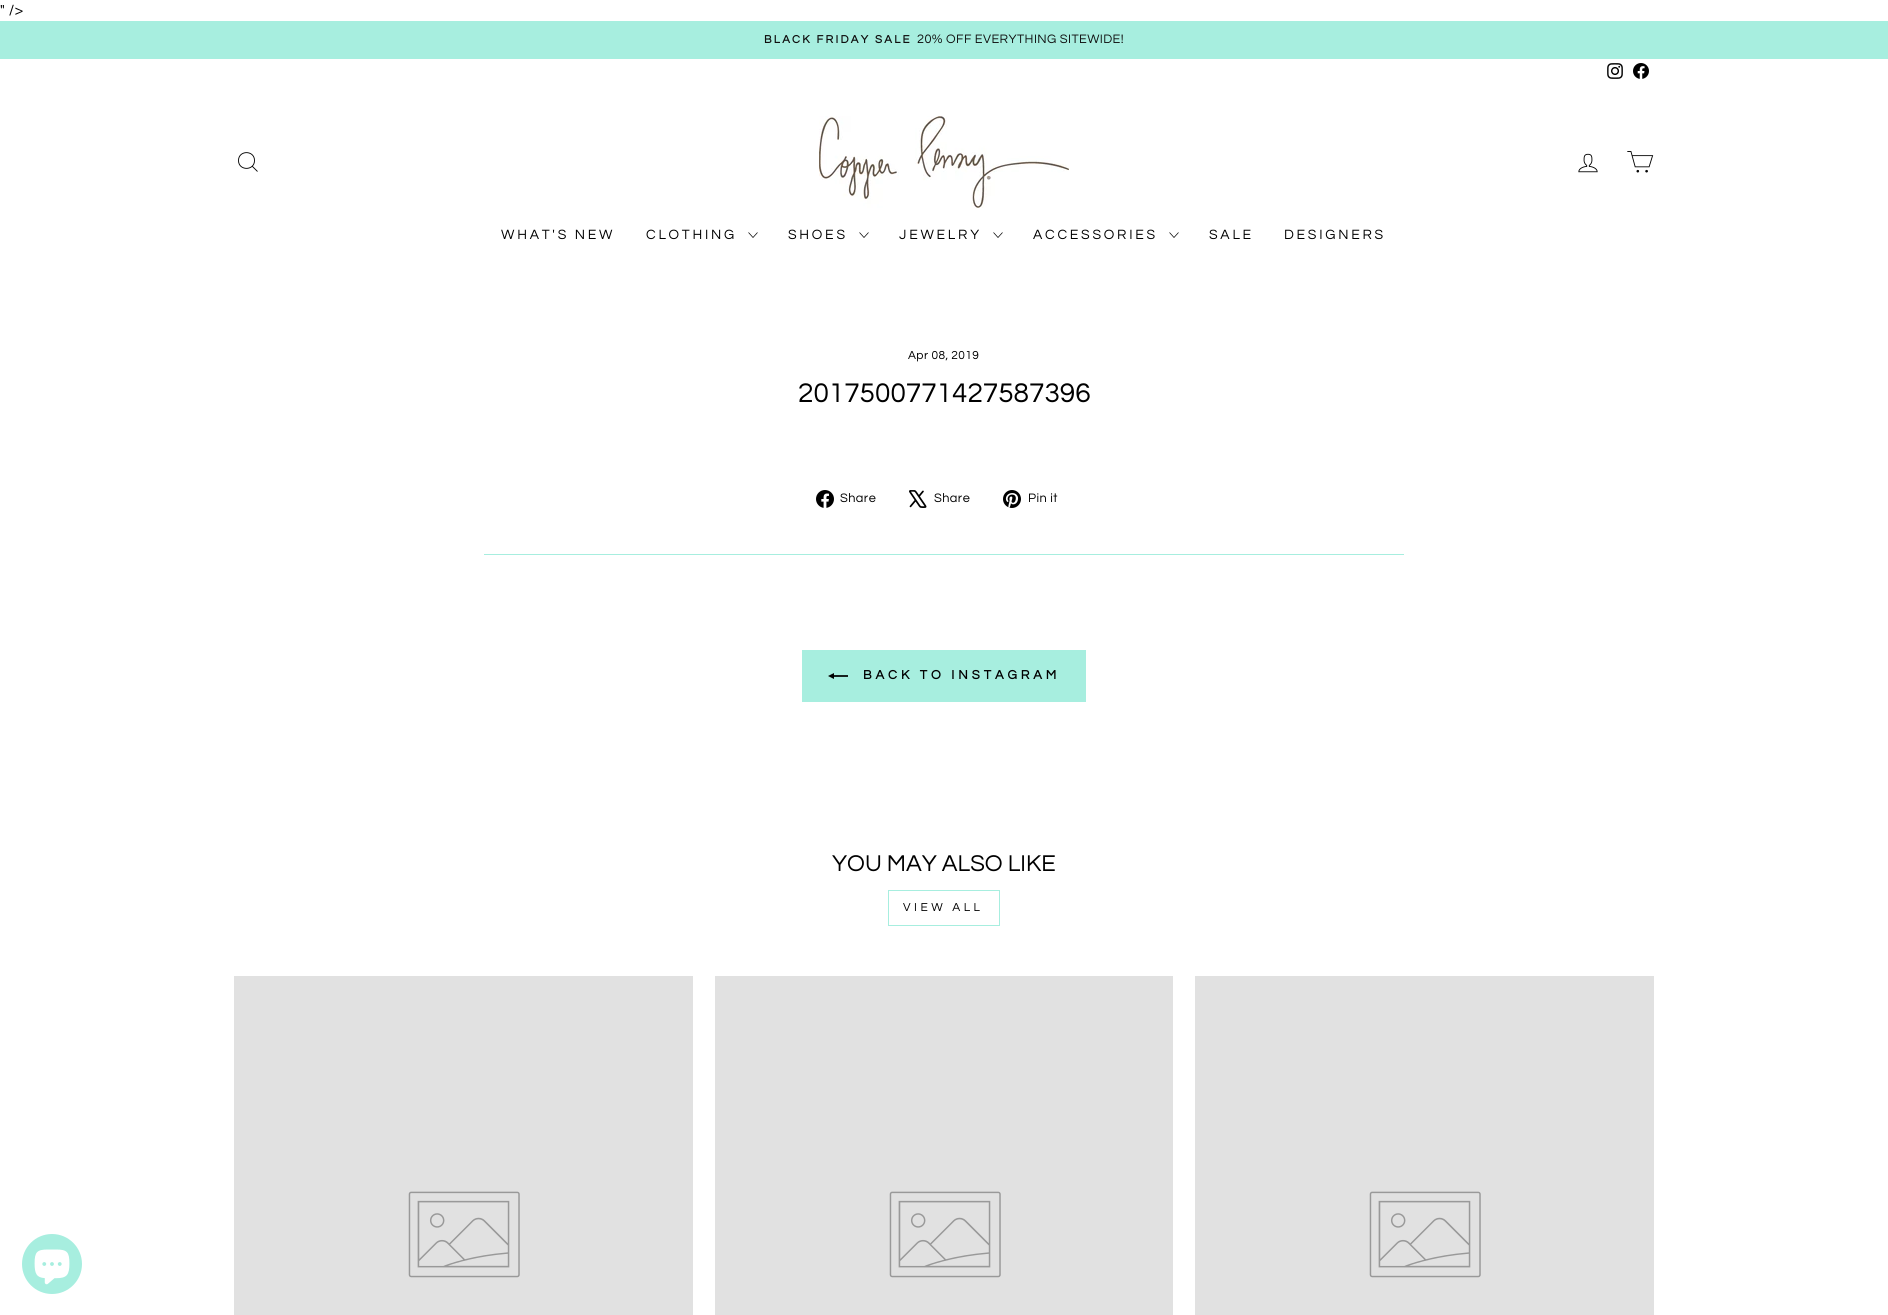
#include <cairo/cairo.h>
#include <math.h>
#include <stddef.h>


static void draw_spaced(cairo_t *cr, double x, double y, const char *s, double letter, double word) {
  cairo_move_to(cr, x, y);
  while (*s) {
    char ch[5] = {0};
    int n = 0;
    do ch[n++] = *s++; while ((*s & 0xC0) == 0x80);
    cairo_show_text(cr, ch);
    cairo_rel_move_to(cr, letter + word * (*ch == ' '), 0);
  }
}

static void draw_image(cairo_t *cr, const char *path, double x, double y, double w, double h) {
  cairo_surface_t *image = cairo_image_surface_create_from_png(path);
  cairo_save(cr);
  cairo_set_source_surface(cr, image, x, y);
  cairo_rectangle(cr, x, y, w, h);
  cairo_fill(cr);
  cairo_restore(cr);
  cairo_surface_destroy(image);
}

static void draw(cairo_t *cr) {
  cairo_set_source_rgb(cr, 1, 1, 1);
  cairo_paint(cr);
  cairo_set_source_rgb(cr, 167 / 255.0, 238 / 255.0, 223 / 255.0);
  cairo_rectangle(cr, 0, 21, 1888, 38);
  cairo_fill(cr);
  draw_image(cr, "images/1.png", 1607, 63, 16, 16);
  draw_image(cr, "images/2.png", 1633, 63, 16, 16);
  cairo_new_path(cr);
  cairo_move_to(cr, 254.5, 160.5);
  cairo_curve_to(cr, 254.5, 171, 238.5, 171, 238.5, 160.5);
  cairo_curve_to(cr, 238.5, 150, 254.5, 150, 254.5, 160.5);
  cairo_close_path(cr);
  cairo_move_to(cr, 257.5, 171.5);
  cairo_line_to(cr, 252.5, 166.5);
  cairo_set_source_rgb(cr, 0, 0, 0);
  cairo_set_line_width(cr, 0.9);
  cairo_stroke(cr);
  draw_image(cr, "images/3.png", 819, 116, 250, 92);
  draw_image(cr, "images/4.png", 1578, 153, 20, 20);
  draw_image(cr, "images/5.png", 1627, 151, 27, 22);
  cairo_new_path(cr);
  cairo_move_to(cr, 748.5, 232.5);
  cairo_line_to(cr, 753, 237.5);
  cairo_line_to(cr, 757.5, 232.5);
  cairo_set_line_width(cr, 0.7);
  cairo_stroke(cr);
  cairo_new_path(cr);
  cairo_move_to(cr, 859.5, 232.5);
  cairo_line_to(cr, 864, 237.5);
  cairo_line_to(cr, 868.5, 232.5);
  cairo_stroke(cr);
  cairo_new_path(cr);
  cairo_move_to(cr, 993.5, 232.5);
  cairo_line_to(cr, 998, 237.5);
  cairo_line_to(cr, 1002.5, 232.5);
  cairo_stroke(cr);
  cairo_new_path(cr);
  cairo_move_to(cr, 1169.5, 232.5);
  cairo_line_to(cr, 1174, 237.5);
  cairo_line_to(cr, 1178.5, 232.5);
  cairo_stroke(cr);
  draw_image(cr, "images/6.png", 816, 490, 18, 18);
  draw_image(cr, "images/7.png", 909, 490, 18, 18);
  draw_image(cr, "images/8.png", 1003, 490, 18, 18);
  cairo_set_source_rgb(cr, 167 / 255.0, 238 / 255.0, 223 / 255.0);
  cairo_rectangle(cr, 484, 554, 920, 1);
  cairo_fill(cr);
  cairo_rectangle(cr, 802, 650, 284, 52);
  cairo_fill(cr);
  draw_image(cr, "images/9.png", 828, 673, 20, 6);
  cairo_rectangle(cr, 888.5, 890.5, 111, 35);
  cairo_set_line_width(cr, 1);
  cairo_stroke(cr);
  cairo_set_source_rgb(cr, 225 / 255.0, 225 / 255.0, 225 / 255.0);
  cairo_rectangle(cr, 234, 976, 459, 339);
  cairo_fill(cr);
  draw_image(cr, "images/10.png", 408, 1191, 112, 87);
  cairo_rectangle(cr, 715, 976, 458, 339);
  cairo_fill(cr);
  draw_image(cr, "images/10.png", 889, 1191, 112, 87);
  cairo_rectangle(cr, 1195, 976, 459, 339);
  cairo_fill(cr);
  draw_image(cr, "images/10.png", 1369, 1191, 112, 87);
  cairo_set_source_rgb(cr, 167 / 255.0, 238 / 255.0, 223 / 255.0);
  cairo_arc(cr, 52, 1264, 30, 0, 2 * M_PI);
  cairo_fill(cr);
  draw_image(cr, "images/11.png", 34, 1249, 36, 36);
  cairo_select_font_face(cr, "Questrial", CAIRO_FONT_SLANT_NORMAL, CAIRO_FONT_WEIGHT_NORMAL);
  cairo_set_font_size(cr, 15);
  cairo_set_source_rgb(cr, 0, 0, 0);
  draw_spaced(cr, 0, 15, "\" />", 0.4, 0);
  cairo_select_font_face(cr, "Questrial", CAIRO_FONT_SLANT_NORMAL, CAIRO_FONT_WEIGHT_BOLD);
  cairo_set_font_size(cr, 11.5);
  cairo_set_source_rgb(cr, 15 / 255.0, 15 / 255.0, 15 / 255.0);
  draw_spaced(cr, 764, 43, "BLACK FRIDAY SALE", 2.25, 0);
  cairo_select_font_face(cr, "Questrial", CAIRO_FONT_SLANT_NORMAL, CAIRO_FONT_WEIGHT_NORMAL);
  cairo_set_font_size(cr, 12.75);
  draw_spaced(cr, 917, 43, "20% OFF EVERYTHING SITEWIDE!", 0.4, 0);
  cairo_set_font_size(cr, 14);
  cairo_set_source_rgb(cr, 0, 0, 0);
  draw_spaced(cr, 501, 239, "WHAT'S NEW", 2.75, 0);
  draw_spaced(cr, 646, 239, "CLOTHING", 2.75, 0);
  draw_spaced(cr, 788, 239, "SHOES", 2.75, 0);
  draw_spaced(cr, 899, 239, "JEWELRY", 2.75, 0);
  draw_spaced(cr, 1033, 239, "ACCESSORIES", 2.75, 0);
  draw_spaced(cr, 1209, 239, "SALE", 2.75, 0);
  draw_spaced(cr, 1284, 239, "DESIGNERS", 2.75, 0);
  cairo_set_font_size(cr, 12);
  draw_spaced(cr, 908, 359, "Apr 08, 2019", 0.4, 0);
  cairo_set_font_size(cr, 28);
  cairo_move_to(cr, 798, 402);
  cairo_show_text(cr, "2017500771427587396");
  cairo_set_font_size(cr, 12.75);
  draw_spaced(cr, 840, 502, "Share", 0.4, 0);
  draw_spaced(cr, 934, 502, "Share", 0.4, 0);
  draw_spaced(cr, 1028, 502, "Pin it", 0.4, 0);
  cairo_select_font_face(cr, "Questrial", CAIRO_FONT_SLANT_NORMAL, CAIRO_FONT_WEIGHT_BOLD);
  cairo_set_font_size(cr, 13);
  draw_spaced(cr, 863, 679, "BACK TO INSTAGRAM", 3.9, 0);
  cairo_select_font_face(cr, "Questrial", CAIRO_FONT_SLANT_NORMAL, CAIRO_FONT_WEIGHT_NORMAL);
  cairo_set_font_size(cr, 23.75);
  cairo_move_to(cr, 832, 871);
  cairo_show_text(cr, "YOU MAY ALSO LIKE");
  cairo_set_font_size(cr, 12);
  draw_spaced(cr, 903, 911, "VIEW ALL", 3.5, 0);
}

int main(void) {
  cairo_surface_t *surface = cairo_image_surface_create(CAIRO_FORMAT_RGB24, 1888, 1315);
  cairo_t *cr = cairo_create(surface);
  cairo_font_options_t *options = cairo_font_options_create();
  cairo_font_options_set_hint_metrics(options, CAIRO_HINT_METRICS_OFF);
  cairo_font_options_set_hint_style(options, CAIRO_HINT_STYLE_NONE);
  cairo_set_font_options(cr, options);
  cairo_set_miter_limit(cr, 4);
  draw(cr);
  cairo_surface_write_to_png(surface, "out.png");
  cairo_font_options_destroy(options);
  cairo_destroy(cr);
  cairo_surface_destroy(surface);
  return 0;
}
